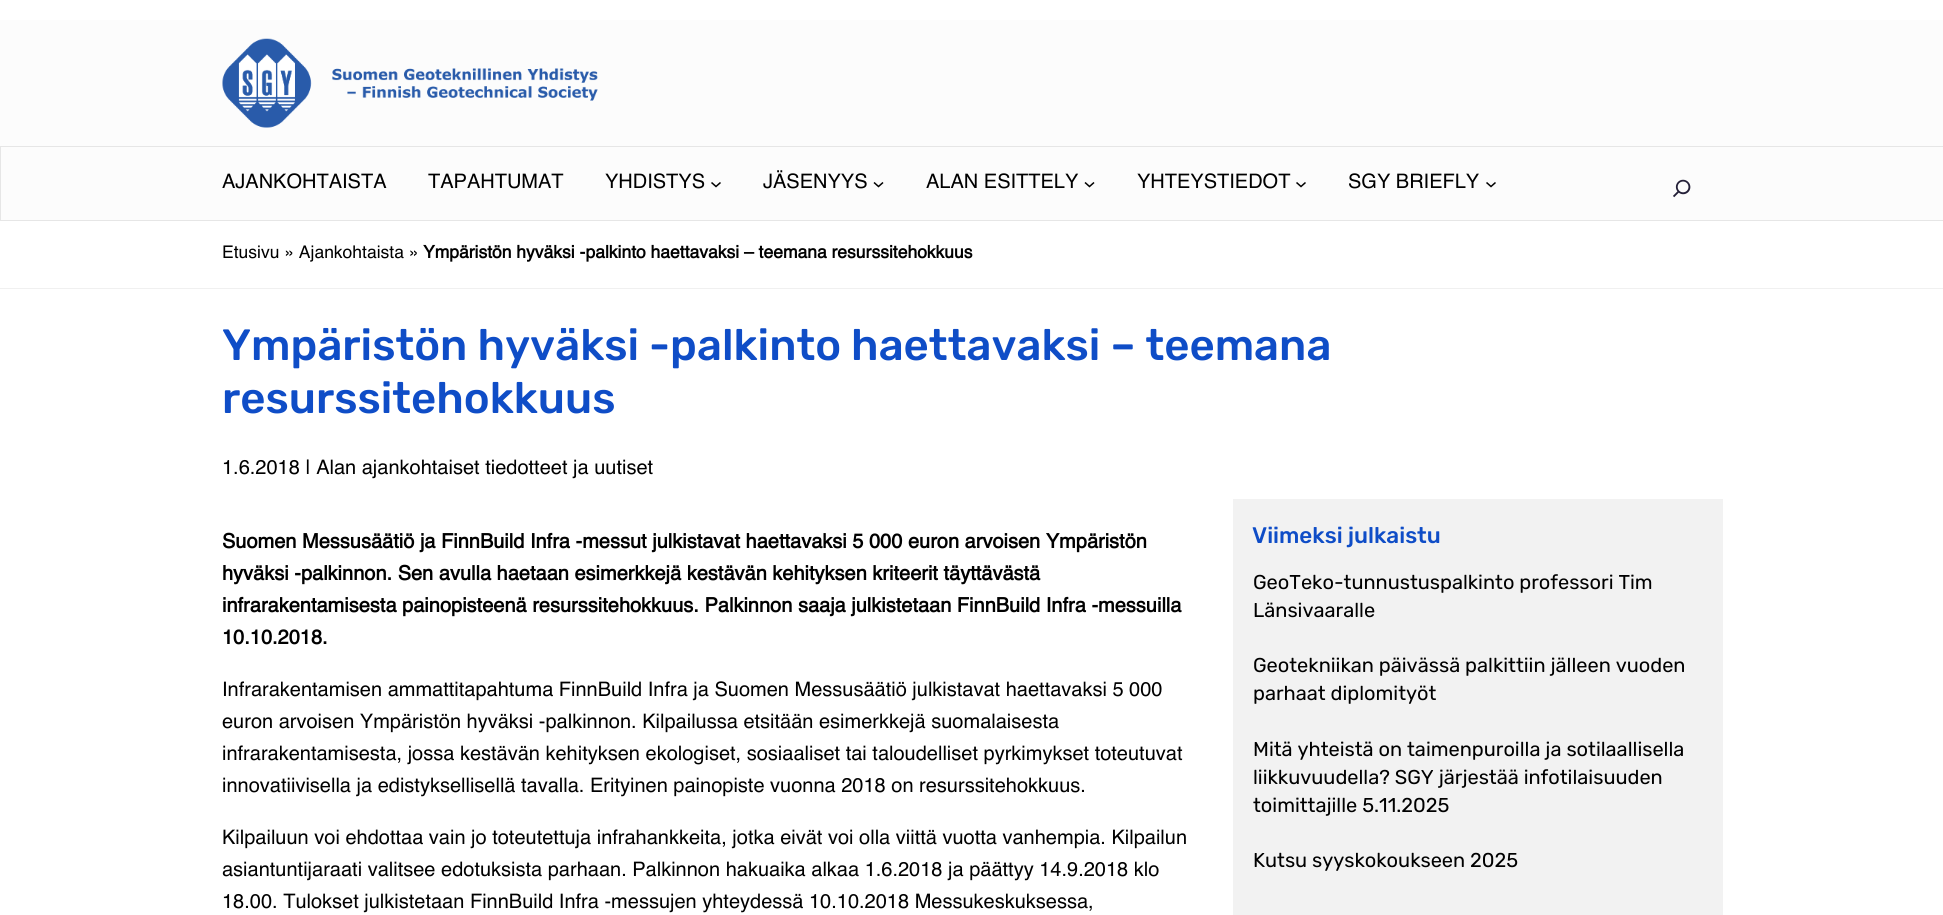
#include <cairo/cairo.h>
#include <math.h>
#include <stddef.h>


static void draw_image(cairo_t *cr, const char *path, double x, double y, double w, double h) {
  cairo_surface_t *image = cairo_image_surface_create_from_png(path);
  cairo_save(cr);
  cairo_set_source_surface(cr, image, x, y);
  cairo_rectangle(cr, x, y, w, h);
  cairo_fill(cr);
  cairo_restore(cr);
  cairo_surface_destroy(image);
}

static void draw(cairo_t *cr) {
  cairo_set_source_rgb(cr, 1, 1, 1);
  cairo_paint(cr);
  cairo_set_source_rgb(cr, 252 / 255.0, 252 / 255.0, 252 / 255.0);
  cairo_rectangle(cr, 0, 20, 1943, 200);
  cairo_fill(cr);
  draw_image(cr, "images/1.png", 222, 38, 376, 90);
  cairo_rectangle(cr, 0.5, 146.5, 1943, 74);
  cairo_set_source_rgb(cr, 230 / 255.0, 230 / 255.0, 230 / 255.0);
  cairo_set_line_width(cr, 1);
  cairo_stroke(cr);
  cairo_new_path(cr);
  cairo_move_to(cr, 711.5, 182.5);
  cairo_line_to(cr, 716, 186.5);
  cairo_line_to(cr, 720.5, 182.5);
  cairo_set_source_rgb(cr, 0, 0, 0);
  cairo_set_line_width(cr, 1.5);
  cairo_stroke(cr);
  cairo_new_path(cr);
  cairo_move_to(cr, 874, 182.5);
  cairo_line_to(cr, 878.5, 186.5);
  cairo_line_to(cr, 883, 182.5);
  cairo_stroke(cr);
  cairo_new_path(cr);
  cairo_move_to(cr, 1085, 182.5);
  cairo_line_to(cr, 1089.5, 186.5);
  cairo_line_to(cr, 1094, 182.5);
  cairo_stroke(cr);
  cairo_new_path(cr);
  cairo_move_to(cr, 1296.5, 182.5);
  cairo_line_to(cr, 1301, 186.5);
  cairo_line_to(cr, 1305.5, 182.5);
  cairo_stroke(cr);
  cairo_new_path(cr);
  cairo_move_to(cr, 1486.5, 182.5);
  cairo_line_to(cr, 1491, 186.5);
  cairo_line_to(cr, 1495.5, 182.5);
  cairo_stroke(cr);
  draw_image(cr, "images/2.png", 1673, 179, 18, 19);
  cairo_set_source_rgb(cr, 240 / 255.0, 240 / 255.0, 240 / 255.0);
  cairo_rectangle(cr, 0, 288, 1943, 1);
  cairo_fill(cr);
  cairo_set_source_rgb(cr, 242 / 255.0, 242 / 255.0, 242 / 255.0);
  cairo_rectangle(cr, 1233, 499, 490, 416);
  cairo_fill(cr);
  cairo_select_font_face(cr, "Helvetica", CAIRO_FONT_SLANT_NORMAL, CAIRO_FONT_WEIGHT_NORMAL);
  cairo_set_font_size(cr, 20);
  cairo_set_source_rgb(cr, 0, 0, 0);
  cairo_move_to(cr, 222, 188);
  cairo_show_text(cr, "AJANKOHTAISTA");
  cairo_move_to(cr, 428, 188);
  cairo_show_text(cr, "TAPAHTUMAT");
  cairo_move_to(cr, 605, 188);
  cairo_show_text(cr, "YHDISTYS");
  cairo_move_to(cr, 763, 188);
  cairo_show_text(cr, "JÄSENYYS");
  cairo_move_to(cr, 926, 188);
  cairo_show_text(cr, "ALAN ESITTELY");
  cairo_move_to(cr, 1137, 188);
  cairo_show_text(cr, "YHTEYSTIEDOT");
  cairo_move_to(cr, 1348, 188);
  cairo_show_text(cr, "SGY BRIEFLY");
  cairo_set_font_size(cr, 17.5);
  cairo_move_to(cr, 222, 258);
  cairo_show_text(cr, "Etusivu » Ajankohtaista »");
  cairo_select_font_face(cr, "Helvetica", CAIRO_FONT_SLANT_NORMAL, CAIRO_FONT_WEIGHT_BOLD);
  cairo_move_to(cr, 423, 258);
  cairo_show_text(cr, "Ympäristön hyväksi -palkinto haettavaksi – teemana resurssitehokkuus");
  cairo_select_font_face(cr, "Rubik Medium", CAIRO_FONT_SLANT_NORMAL, CAIRO_FONT_WEIGHT_NORMAL);
  cairo_set_font_size(cr, 43.75);
  cairo_set_source_rgb(cr, 15 / 255.0, 77 / 255.0, 199 / 255.0);
  cairo_move_to(cr, 222, 360);
  cairo_show_text(cr, "Ympäristön hyväksi -palkinto haettavaksi – teemana");
  cairo_move_to(cr, 222, 413);
  cairo_show_text(cr, "resurssitehokkuus");
  cairo_select_font_face(cr, "Helvetica", CAIRO_FONT_SLANT_NORMAL, CAIRO_FONT_WEIGHT_NORMAL);
  cairo_set_font_size(cr, 20);
  cairo_set_source_rgb(cr, 0, 0, 0);
  cairo_move_to(cr, 222, 474);
  cairo_show_text(cr, "1.6.2018 | Alan ajankohtaiset tiedotteet ja uutiset");
  cairo_select_font_face(cr, "Helvetica", CAIRO_FONT_SLANT_NORMAL, CAIRO_FONT_WEIGHT_BOLD);
  cairo_move_to(cr, 222, 548);
  cairo_show_text(cr, "Suomen Messusäätiö ja FinnBuild Infra -messut julkistavat haettavaksi 5 000 euron arvoisen Ympäristön");
  cairo_move_to(cr, 222, 580);
  cairo_show_text(cr, "hyväksi -palkinnon. Sen avulla haetaan esimerkkejä kestävän kehityksen kriteerit täyttävästä");
  cairo_move_to(cr, 222, 612);
  cairo_show_text(cr, "infrarakentamisesta painopisteenä resurssitehokkuus. Palkinnon saaja julkistetaan FinnBuild Infra -messuilla");
  cairo_move_to(cr, 222, 644);
  cairo_show_text(cr, "10.10.2018.");
  cairo_select_font_face(cr, "Helvetica", CAIRO_FONT_SLANT_NORMAL, CAIRO_FONT_WEIGHT_NORMAL);
  cairo_move_to(cr, 222, 696);
  cairo_show_text(cr, "Infrarakentamisen ammattitapahtuma FinnBuild Infra ja Suomen Messusäätiö julkistavat haettavaksi 5 000");
  cairo_move_to(cr, 222, 728);
  cairo_show_text(cr, "euron arvoisen Ympäristön hyväksi -palkinnon. Kilpailussa etsitään esimerkkejä suomalaisesta");
  cairo_move_to(cr, 222, 760);
  cairo_show_text(cr, "infrarakentamisesta, jossa kestävän kehityksen ekologiset, sosiaaliset tai taloudelliset pyrkimykset toteutuvat");
  cairo_move_to(cr, 222, 792);
  cairo_show_text(cr, "innovatiivisella ja edistyksellisellä tavalla. Erityinen painopiste vuonna 2018 on resurssitehokkuus.");
  cairo_move_to(cr, 222, 844);
  cairo_show_text(cr, "Kilpailuun voi ehdottaa vain jo toteutettuja infrahankkeita, jotka eivät voi olla viittä vuotta vanhempia. Kilpailun");
  cairo_move_to(cr, 222, 876);
  cairo_show_text(cr, "asiantuntijaraati valitsee edotuksista parhaan. Palkinnon hakuaika alkaa 1.6.2018 ja päättyy 14.9.2018 klo");
  cairo_move_to(cr, 222, 908);
  cairo_show_text(cr, "18.00. Tulokset julkistetaan FinnBuild Infra -messujen yhteydessä 10.10.2018 Messukeskuksessa,");
  cairo_select_font_face(cr, "Rubik Medium", CAIRO_FONT_SLANT_NORMAL, CAIRO_FONT_WEIGHT_NORMAL);
  cairo_set_font_size(cr, 22.5);
  cairo_set_source_rgb(cr, 15 / 255.0, 77 / 255.0, 199 / 255.0);
  cairo_move_to(cr, 1252, 543);
  cairo_show_text(cr, "Viimeksi julkaistu");
  cairo_select_font_face(cr, "Rubik", CAIRO_FONT_SLANT_NORMAL, CAIRO_FONT_WEIGHT_NORMAL);
  cairo_set_font_size(cr, 20);
  cairo_set_source_rgb(cr, 0, 0, 0);
  cairo_move_to(cr, 1253, 589);
  cairo_show_text(cr, "GeoTeko-tunnustuspalkinto professori Tim");
  cairo_move_to(cr, 1253, 617);
  cairo_show_text(cr, "Länsivaaralle");
  cairo_move_to(cr, 1253, 672);
  cairo_show_text(cr, "Geotekniikan päivässä palkittiin jälleen vuoden");
  cairo_move_to(cr, 1253, 700);
  cairo_show_text(cr, "parhaat diplomityöt");
  cairo_move_to(cr, 1253, 756);
  cairo_show_text(cr, "Mitä yhteistä on taimenpuroilla ja sotilaallisella");
  cairo_move_to(cr, 1253, 784);
  cairo_show_text(cr, "liikkuvuudella? SGY järjestää infotilaisuuden");
  cairo_move_to(cr, 1253, 812);
  cairo_show_text(cr, "toimittajille 5.11.2025");
  cairo_move_to(cr, 1253, 867);
  cairo_show_text(cr, "Kutsu syyskokoukseen 2025");
}

int main(void) {
  cairo_surface_t *surface = cairo_image_surface_create(CAIRO_FORMAT_RGB24, 1943, 915);
  cairo_t *cr = cairo_create(surface);
  cairo_font_options_t *options = cairo_font_options_create();
  cairo_font_options_set_hint_metrics(options, CAIRO_HINT_METRICS_OFF);
  cairo_font_options_set_hint_style(options, CAIRO_HINT_STYLE_NONE);
  cairo_set_font_options(cr, options);
  cairo_set_miter_limit(cr, 4);
  draw(cr);
  cairo_surface_write_to_png(surface, "out.png");
  cairo_font_options_destroy(options);
  cairo_destroy(cr);
  cairo_surface_destroy(surface);
  return 0;
}
